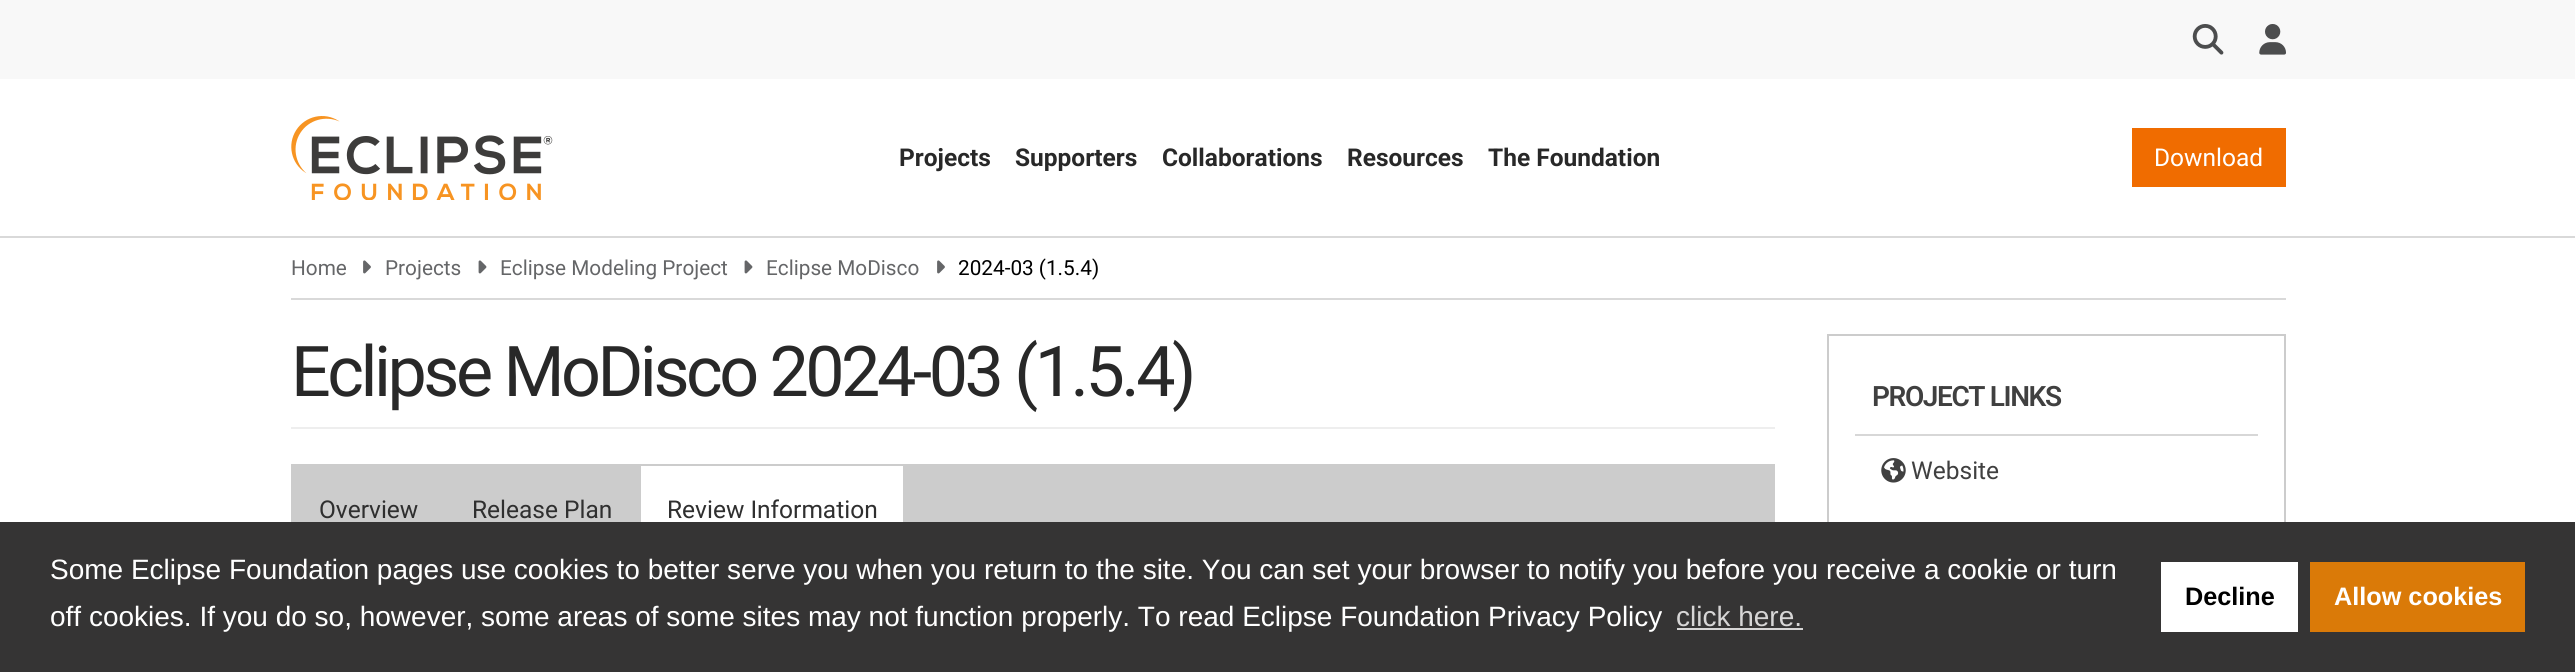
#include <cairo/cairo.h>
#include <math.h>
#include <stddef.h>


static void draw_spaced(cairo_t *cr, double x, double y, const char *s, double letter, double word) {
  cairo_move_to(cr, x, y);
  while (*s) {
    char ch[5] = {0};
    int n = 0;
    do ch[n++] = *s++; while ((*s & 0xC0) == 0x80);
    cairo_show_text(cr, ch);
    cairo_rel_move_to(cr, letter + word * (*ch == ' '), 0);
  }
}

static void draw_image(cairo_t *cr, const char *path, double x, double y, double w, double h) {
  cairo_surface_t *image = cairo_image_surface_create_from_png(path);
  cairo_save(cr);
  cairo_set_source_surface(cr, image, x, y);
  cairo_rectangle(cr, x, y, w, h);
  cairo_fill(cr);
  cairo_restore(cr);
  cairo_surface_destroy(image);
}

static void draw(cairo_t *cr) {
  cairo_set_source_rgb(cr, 1, 1, 1);
  cairo_paint(cr);
  cairo_set_source_rgb(cr, 248 / 255.0, 248 / 255.0, 248 / 255.0);
  cairo_rectangle(cr, 0, 0, 2575, 79);
  cairo_fill(cr);
  draw_image(cr, "images/1.png", 2192, 24, 32, 31);
  draw_image(cr, "images/2.png", 2259, 24, 27, 31);
  cairo_set_source_rgb(cr, 217 / 255.0, 217 / 255.0, 217 / 255.0);
  cairo_rectangle(cr, 0, 236, 2575, 2);
  cairo_fill(cr);
  draw_image(cr, "images/3.png", 291, 116, 262, 84);
  cairo_set_source_rgb(cr, 240 / 255.0, 108 / 255.0, 0);
  cairo_rectangle(cr, 2132, 128, 154, 59);
  cairo_fill(cr);
  cairo_set_source_rgb(cr, 217 / 255.0, 217 / 255.0, 217 / 255.0);
  cairo_rectangle(cr, 291, 298, 1995, 2);
  cairo_fill(cr);
  draw_image(cr, "images/4.png", 363, 260, 8, 14);
  draw_image(cr, "images/5.png", 478, 260, 9, 14);
  draw_image(cr, "images/5.png", 744, 260, 9, 14);
  draw_image(cr, "images/4.png", 937, 260, 8, 14);
  cairo_set_source_rgb(cr, 238 / 255.0, 238 / 255.0, 238 / 255.0);
  cairo_rectangle(cr, 291, 427, 1484, 2);
  cairo_fill(cr);
  cairo_set_source_rgb(cr, 204 / 255.0, 204 / 255.0, 204 / 255.0);
  cairo_rectangle(cr, 903, 464, 872, 58);
  cairo_fill(cr);
  cairo_rectangle(cr, 291, 464, 348, 58);
  cairo_fill(cr);
  cairo_rectangle(cr, 639, 464, 264, 2);
  cairo_fill(cr);
  cairo_rectangle(cr, 639, 464, 2, 58);
  cairo_fill(cr);
  cairo_rectangle(cr, 1828, 335, 457, 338);
  cairo_stroke(cr);
  cairo_set_source_rgb(cr, 215 / 255.0, 215 / 255.0, 215 / 255.0);
  cairo_rectangle(cr, 1855, 434, 403, 2);
  cairo_fill(cr);
  draw_image(cr, "images/6.png", 1881, 458, 25, 25);
  cairo_set_source_rgb(cr, 53 / 255.0, 52 / 255.0, 52 / 255.0);
  cairo_rectangle(cr, 0, 522, 2575, 150);
  cairo_fill(cr);
  cairo_set_source_rgb(cr, 215 / 255.0, 214 / 255.0, 214 / 255.0);
  cairo_rectangle(cr, 1677, 628, 126, 2);
  cairo_fill(cr);
  cairo_set_source_rgb(cr, 1, 1, 1);
  cairo_rectangle(cr, 2161, 562, 137, 70);
  cairo_fill(cr);
  cairo_set_source_rgb(cr, 218 / 255.0, 122 / 255.0, 8 / 255.0);
  cairo_rectangle(cr, 2310, 562, 215, 70);
  cairo_fill(cr);
  cairo_select_font_face(cr, "Roboto", CAIRO_FONT_SLANT_NORMAL, CAIRO_FONT_WEIGHT_BOLD);
  cairo_set_font_size(cr, 24.5);
  cairo_set_source_rgb(cr, 40 / 255.0, 40 / 255.0, 40 / 255.0);
  cairo_move_to(cr, 899, 166);
  cairo_show_text(cr, "Projects");
  cairo_move_to(cr, 1015, 166);
  cairo_show_text(cr, "Supporters");
  cairo_move_to(cr, 1162, 166);
  cairo_show_text(cr, "Collaborations");
  cairo_move_to(cr, 1347, 166);
  cairo_show_text(cr, "Resources");
  cairo_move_to(cr, 1488, 166);
  cairo_show_text(cr, "The Foundation");
  cairo_select_font_face(cr, "Roboto", CAIRO_FONT_SLANT_NORMAL, CAIRO_FONT_WEIGHT_NORMAL);
  cairo_set_source_rgb(cr, 1, 1, 1);
  cairo_move_to(cr, 2154, 166);
  cairo_show_text(cr, "Download");
  cairo_set_font_size(cr, 20.75);
  cairo_set_source_rgb(cr, 101 / 255.0, 102 / 255.0, 104 / 255.0);
  cairo_move_to(cr, 291, 275);
  cairo_show_text(cr, "Home");
  cairo_move_to(cr, 385, 275);
  cairo_show_text(cr, "Projects");
  cairo_move_to(cr, 500, 275);
  cairo_show_text(cr, "Eclipse Modeling Project");
  cairo_move_to(cr, 766, 275);
  cairo_show_text(cr, "Eclipse MoDisco");
  cairo_set_source_rgb(cr, 0, 0, 0);
  cairo_move_to(cr, 958, 275);
  cairo_show_text(cr, "2024-03 (1.5.4)");
  cairo_set_font_size(cr, 70);
  cairo_set_source_rgb(cr, 40 / 255.0, 40 / 255.0, 40 / 255.0);
  draw_spaced(cr, 291, 396, "Eclipse MoDisco 2024-03 (1.5.4)", -3.5, 0);
  cairo_set_font_size(cr, 24.5);
  cairo_set_source_rgb(cr, 47 / 255.0, 47 / 255.0, 47 / 255.0);
  cairo_move_to(cr, 319, 518);
  cairo_show_text(cr, "Overview");
  cairo_move_to(cr, 472, 518);
  cairo_show_text(cr, "Release Plan");
  cairo_move_to(cr, 667, 518);
  cairo_show_text(cr, "Review Information");
  cairo_select_font_face(cr, "Roboto SemiBold", CAIRO_FONT_SLANT_NORMAL, CAIRO_FONT_WEIGHT_NORMAL);
  cairo_set_font_size(cr, 28);
  cairo_set_source_rgb(cr, 64 / 255.0, 64 / 255.0, 64 / 255.0);
  draw_spaced(cr, 1872, 406, "PROJECT LINKS", -1.4, 0);
  cairo_select_font_face(cr, "Roboto", CAIRO_FONT_SLANT_NORMAL, CAIRO_FONT_WEIGHT_NORMAL);
  cairo_set_font_size(cr, 24.5);
  cairo_move_to(cr, 1911, 479);
  cairo_show_text(cr, "Website");
  cairo_select_font_face(cr, "Liberation Sans", CAIRO_FONT_SLANT_NORMAL, CAIRO_FONT_WEIGHT_NORMAL);
  cairo_set_font_size(cr, 28);
  cairo_set_source_rgb(cr, 1, 1, 1);
  cairo_move_to(cr, 50, 579);
  cairo_show_text(cr, "Some Eclipse Foundation pages use cookies to better serve you when you return to the site. You can set your browser to notify you before you receive a cookie or turn");
  cairo_move_to(cr, 50, 626);
  cairo_show_text(cr, "off cookies. If you do so, however, some areas of some sites may not function properly. To read Eclipse Foundation Privacy Policy");
  cairo_set_source_rgb(cr, 215 / 255.0, 214 / 255.0, 214 / 255.0);
  cairo_move_to(cr, 1676, 626);
  cairo_show_text(cr, "click here.");
  cairo_select_font_face(cr, "Liberation Sans", CAIRO_FONT_SLANT_NORMAL, CAIRO_FONT_WEIGHT_BOLD);
  cairo_set_font_size(cr, 25.25);
  cairo_set_source_rgb(cr, 0, 0, 0);
  cairo_move_to(cr, 2185, 605);
  cairo_show_text(cr, "Decline");
  cairo_set_source_rgb(cr, 1, 1, 1);
  cairo_move_to(cr, 2334, 605);
  cairo_show_text(cr, "Allow cookies");
}

int main(void) {
  cairo_surface_t *surface = cairo_image_surface_create(CAIRO_FORMAT_RGB24, 2575, 672);
  cairo_t *cr = cairo_create(surface);
  cairo_font_options_t *options = cairo_font_options_create();
  cairo_font_options_set_hint_metrics(options, CAIRO_HINT_METRICS_OFF);
  cairo_font_options_set_hint_style(options, CAIRO_HINT_STYLE_NONE);
  cairo_set_font_options(cr, options);
  cairo_set_miter_limit(cr, 4);
  draw(cr);
  cairo_surface_write_to_png(surface, "out.png");
  cairo_font_options_destroy(options);
  cairo_destroy(cr);
  cairo_surface_destroy(surface);
  return 0;
}
